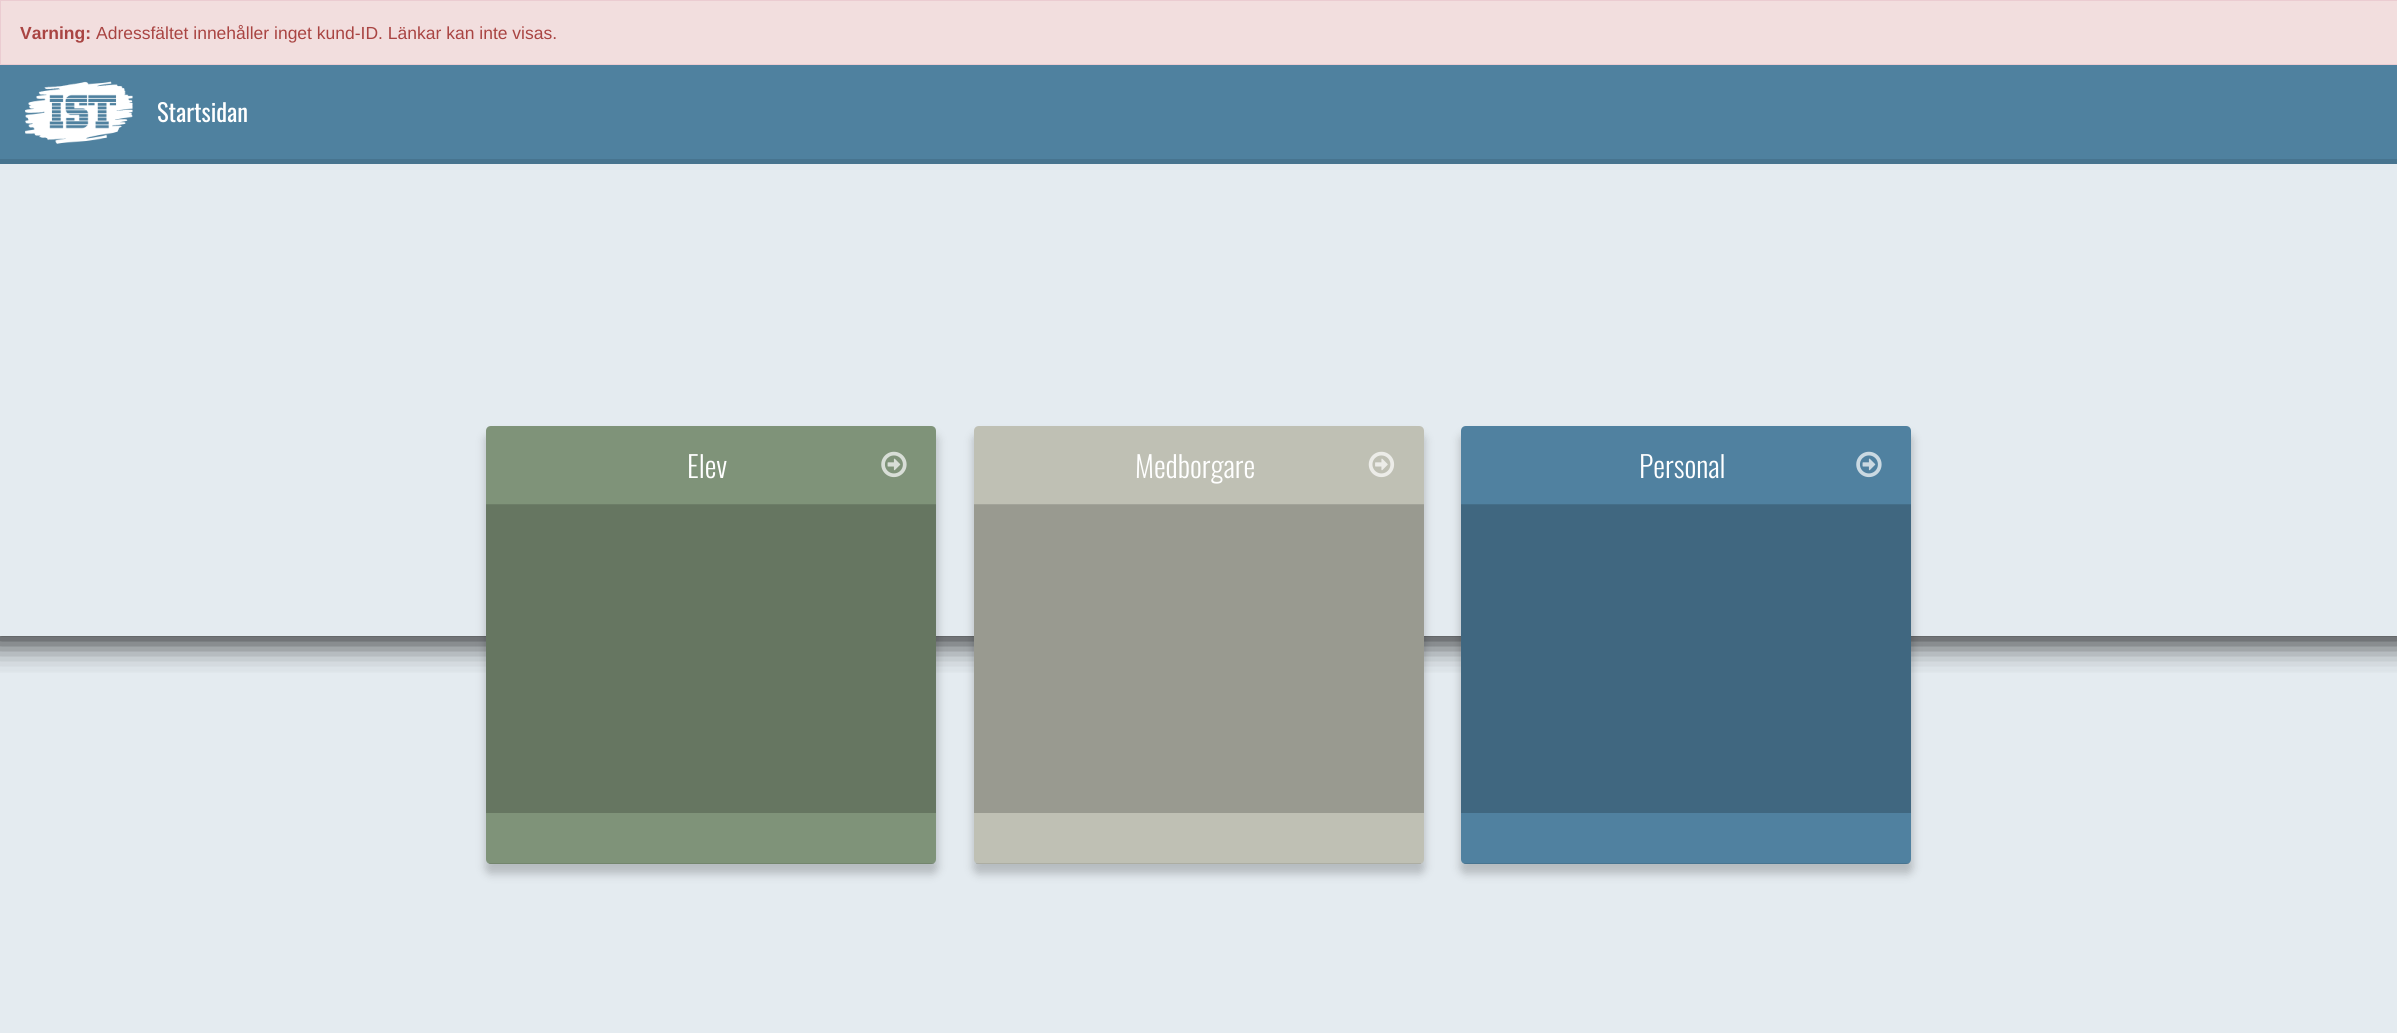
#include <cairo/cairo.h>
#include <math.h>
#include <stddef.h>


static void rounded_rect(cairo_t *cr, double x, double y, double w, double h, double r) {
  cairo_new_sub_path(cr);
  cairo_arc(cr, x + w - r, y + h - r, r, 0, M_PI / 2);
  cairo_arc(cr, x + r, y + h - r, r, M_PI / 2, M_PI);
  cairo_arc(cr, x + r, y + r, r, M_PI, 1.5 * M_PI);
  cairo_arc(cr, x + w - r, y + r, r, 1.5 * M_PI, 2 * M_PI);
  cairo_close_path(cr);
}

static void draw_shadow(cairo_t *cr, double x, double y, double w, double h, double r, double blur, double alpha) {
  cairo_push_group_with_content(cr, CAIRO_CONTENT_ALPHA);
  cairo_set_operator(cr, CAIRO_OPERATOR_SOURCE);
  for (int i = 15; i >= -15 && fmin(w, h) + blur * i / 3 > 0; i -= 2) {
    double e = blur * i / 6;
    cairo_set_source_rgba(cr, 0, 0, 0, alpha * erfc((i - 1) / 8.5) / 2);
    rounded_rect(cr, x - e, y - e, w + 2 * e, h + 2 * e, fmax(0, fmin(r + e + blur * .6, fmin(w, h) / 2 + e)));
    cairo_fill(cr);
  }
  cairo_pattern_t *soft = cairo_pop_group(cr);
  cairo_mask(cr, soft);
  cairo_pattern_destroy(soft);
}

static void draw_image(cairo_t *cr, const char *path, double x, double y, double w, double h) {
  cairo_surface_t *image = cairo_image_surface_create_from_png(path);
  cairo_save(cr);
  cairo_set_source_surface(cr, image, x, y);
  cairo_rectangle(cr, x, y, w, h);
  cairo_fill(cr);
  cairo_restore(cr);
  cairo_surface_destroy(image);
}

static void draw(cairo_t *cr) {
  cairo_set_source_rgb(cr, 228 / 255.0, 235 / 255.0, 240 / 255.0);
  cairo_paint(cr);
  cairo_set_source_rgb(cr, 242 / 255.0, 222 / 255.0, 222 / 255.0);
  cairo_rectangle(cr, 0.5, 0.5, 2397, 64);
  cairo_fill_preserve(cr);
  cairo_set_source_rgb(cr, 235 / 255.0, 204 / 255.0, 209 / 255.0);
  cairo_set_line_width(cr, 1);
  cairo_stroke(cr);
  cairo_save(cr);
  cairo_rectangle(cr, 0, 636, 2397, 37);
  cairo_clip(cr);
  cairo_set_source_rgb(cr, 0, 0, 0);
  draw_shadow(cr, -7, 156, 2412, 488, 0, 15, 0.8);
  cairo_restore(cr);
  cairo_set_source_rgb(cr, 79 / 255.0, 129 / 255.0, 159 / 255.0);
  cairo_rectangle(cr, 0, 65, 2397, 94);
  cairo_fill(cr);
  cairo_set_source_rgb(cr, 71 / 255.0, 116 / 255.0, 143 / 255.0);
  cairo_rectangle(cr, 0, 159, 2397, 5);
  cairo_fill(cr);
  draw_image(cr, "images/1.png", 25, 81, 108, 63);
  cairo_set_source_rgb(cr, 0, 0, 0);
  draw_shadow(cr, 485, 434, 453, 440, 6, 4.5, 0.2);
  cairo_set_source_rgb(cr, 127 / 255.0, 147 / 255.0, 121 / 255.0);
  cairo_new_path(cr);
  cairo_move_to(cr, 491, 426);
  cairo_line_to(cr, 931, 426);
  cairo_curve_to(cr, 934, 426, 936, 428, 936, 431);
  cairo_line_to(cr, 936, 505);
  cairo_line_to(cr, 486, 505);
  cairo_line_to(cr, 486, 431);
  cairo_curve_to(cr, 486, 428, 488, 426, 491, 426);
  cairo_close_path(cr);
  cairo_fill(cr);
  cairo_set_source_rgb(cr, 108 / 255.0, 125 / 255.0, 103 / 255.0);
  cairo_rectangle(cr, 486, 504, 450, 1);
  cairo_fill(cr);
  draw_image(cr, "images/2.png", 881, 451, 26, 27);
  cairo_set_source_rgb(cr, 102 / 255.0, 118 / 255.0, 97 / 255.0);
  cairo_rectangle(cr, 486, 505, 450, 308);
  cairo_fill(cr);
  cairo_set_source_rgb(cr, 127 / 255.0, 147 / 255.0, 121 / 255.0);
  cairo_new_path(cr);
  cairo_move_to(cr, 486, 813);
  cairo_line_to(cr, 936, 813);
  cairo_line_to(cr, 936, 859);
  cairo_curve_to(cr, 936, 862, 934, 864, 931, 864);
  cairo_line_to(cr, 491, 864);
  cairo_curve_to(cr, 488, 864, 486, 862, 486, 859);
  cairo_close_path(cr);
  cairo_fill(cr);
  cairo_set_source_rgba(cr, 0, 0, 0, 0.1);
  cairo_rectangle(cr, 489, 863, 445, 1);
  cairo_fill(cr);
  cairo_set_source_rgb(cr, 0, 0, 0);
  draw_shadow(cr, 973, 434, 452, 440, 6, 4.5, 0.2);
  cairo_set_source_rgb(cr, 191 / 255.0, 192 / 255.0, 180 / 255.0);
  cairo_new_path(cr);
  cairo_move_to(cr, 979, 426);
  cairo_line_to(cr, 1419, 426);
  cairo_curve_to(cr, 1422, 426, 1424, 428, 1424, 431);
  cairo_line_to(cr, 1424, 505);
  cairo_line_to(cr, 974, 505);
  cairo_line_to(cr, 974, 431);
  cairo_curve_to(cr, 974, 428, 976, 426, 979, 426);
  cairo_close_path(cr);
  cairo_fill(cr);
  cairo_set_source_rgb(cr, 162 / 255.0, 163 / 255.0, 153 / 255.0);
  cairo_rectangle(cr, 974, 504, 450, 1);
  cairo_fill(cr);
  draw_image(cr, "images/3.png", 1368, 451, 27, 27);
  cairo_set_source_rgb(cr, 153 / 255.0, 154 / 255.0, 144 / 255.0);
  cairo_rectangle(cr, 974, 505, 450, 308);
  cairo_fill(cr);
  cairo_set_source_rgb(cr, 191 / 255.0, 192 / 255.0, 180 / 255.0);
  cairo_new_path(cr);
  cairo_move_to(cr, 974, 813);
  cairo_line_to(cr, 1424, 813);
  cairo_line_to(cr, 1424, 859);
  cairo_curve_to(cr, 1424, 862, 1422, 864, 1419, 864);
  cairo_line_to(cr, 979, 864);
  cairo_curve_to(cr, 976, 864, 974, 862, 974, 859);
  cairo_close_path(cr);
  cairo_fill(cr);
  cairo_set_source_rgba(cr, 0, 0, 0, 0.1);
  cairo_rectangle(cr, 976, 863, 445, 1);
  cairo_fill(cr);
  cairo_set_source_rgb(cr, 0, 0, 0);
  draw_shadow(cr, 1460, 434, 453, 440, 6, 4.5, 0.2);
  cairo_set_source_rgb(cr, 80 / 255.0, 129 / 255.0, 160 / 255.0);
  cairo_new_path(cr);
  cairo_move_to(cr, 1466, 426);
  cairo_line_to(cr, 1906, 426);
  cairo_curve_to(cr, 1909, 426, 1911, 428, 1911, 431);
  cairo_line_to(cr, 1911, 505);
  cairo_line_to(cr, 1461, 505);
  cairo_line_to(cr, 1461, 431);
  cairo_curve_to(cr, 1461, 428, 1463, 426, 1466, 426);
  cairo_close_path(cr);
  cairo_fill(cr);
  cairo_set_source_rgb(cr, 68 / 255.0, 110 / 255.0, 136 / 255.0);
  cairo_rectangle(cr, 1461, 504, 450, 1);
  cairo_fill(cr);
  draw_image(cr, "images/4.png", 1856, 451, 26, 27);
  cairo_set_source_rgb(cr, 64 / 255.0, 103 / 255.0, 128 / 255.0);
  cairo_rectangle(cr, 1461, 505, 450, 308);
  cairo_fill(cr);
  cairo_set_source_rgb(cr, 80 / 255.0, 129 / 255.0, 160 / 255.0);
  cairo_new_path(cr);
  cairo_move_to(cr, 1461, 813);
  cairo_line_to(cr, 1911, 813);
  cairo_line_to(cr, 1911, 859);
  cairo_curve_to(cr, 1911, 862, 1909, 864, 1906, 864);
  cairo_line_to(cr, 1466, 864);
  cairo_curve_to(cr, 1463, 864, 1461, 862, 1461, 859);
  cairo_close_path(cr);
  cairo_fill(cr);
  cairo_set_source_rgba(cr, 0, 0, 0, 0.1);
  cairo_rectangle(cr, 1464, 863, 445, 1);
  cairo_fill(cr);
  cairo_select_font_face(cr, "Liberation Sans", CAIRO_FONT_SLANT_NORMAL, CAIRO_FONT_WEIGHT_BOLD);
  cairo_set_font_size(cr, 17.5);
  cairo_set_source_rgb(cr, 169 / 255.0, 68 / 255.0, 66 / 255.0);
  cairo_move_to(cr, 20, 39);
  cairo_show_text(cr, "Varning:");
  cairo_select_font_face(cr, "Liberation Sans", CAIRO_FONT_SLANT_NORMAL, CAIRO_FONT_WEIGHT_NORMAL);
  cairo_move_to(cr, 96, 39);
  cairo_show_text(cr, "Adressfältet innehåller inget kund-ID. Länkar kan inte visas.");
  cairo_select_font_face(cr, "Oswald", CAIRO_FONT_SLANT_NORMAL, CAIRO_FONT_WEIGHT_NORMAL);
  cairo_set_font_size(cr, 24.5);
  cairo_set_source_rgb(cr, 1, 1, 1);
  cairo_move_to(cr, 157, 122);
  cairo_show_text(cr, "Startsidan");
  cairo_select_font_face(cr, "Oswald Light", CAIRO_FONT_SLANT_NORMAL, CAIRO_FONT_WEIGHT_NORMAL);
  cairo_set_font_size(cr, 29.5);
  cairo_move_to(cr, 687, 478);
  cairo_show_text(cr, "Elev");
  cairo_move_to(cr, 1135, 478);
  cairo_show_text(cr, "Medborgare");
  cairo_move_to(cr, 1639, 478);
  cairo_show_text(cr, "Personal");
}

int main(void) {
  cairo_surface_t *surface = cairo_image_surface_create(CAIRO_FORMAT_RGB24, 2397, 1033);
  cairo_t *cr = cairo_create(surface);
  cairo_font_options_t *options = cairo_font_options_create();
  cairo_font_options_set_hint_metrics(options, CAIRO_HINT_METRICS_OFF);
  cairo_font_options_set_hint_style(options, CAIRO_HINT_STYLE_NONE);
  cairo_set_font_options(cr, options);
  cairo_set_miter_limit(cr, 4);
  draw(cr);
  cairo_surface_write_to_png(surface, "out.png");
  cairo_font_options_destroy(options);
  cairo_destroy(cr);
  cairo_surface_destroy(surface);
  return 0;
}
